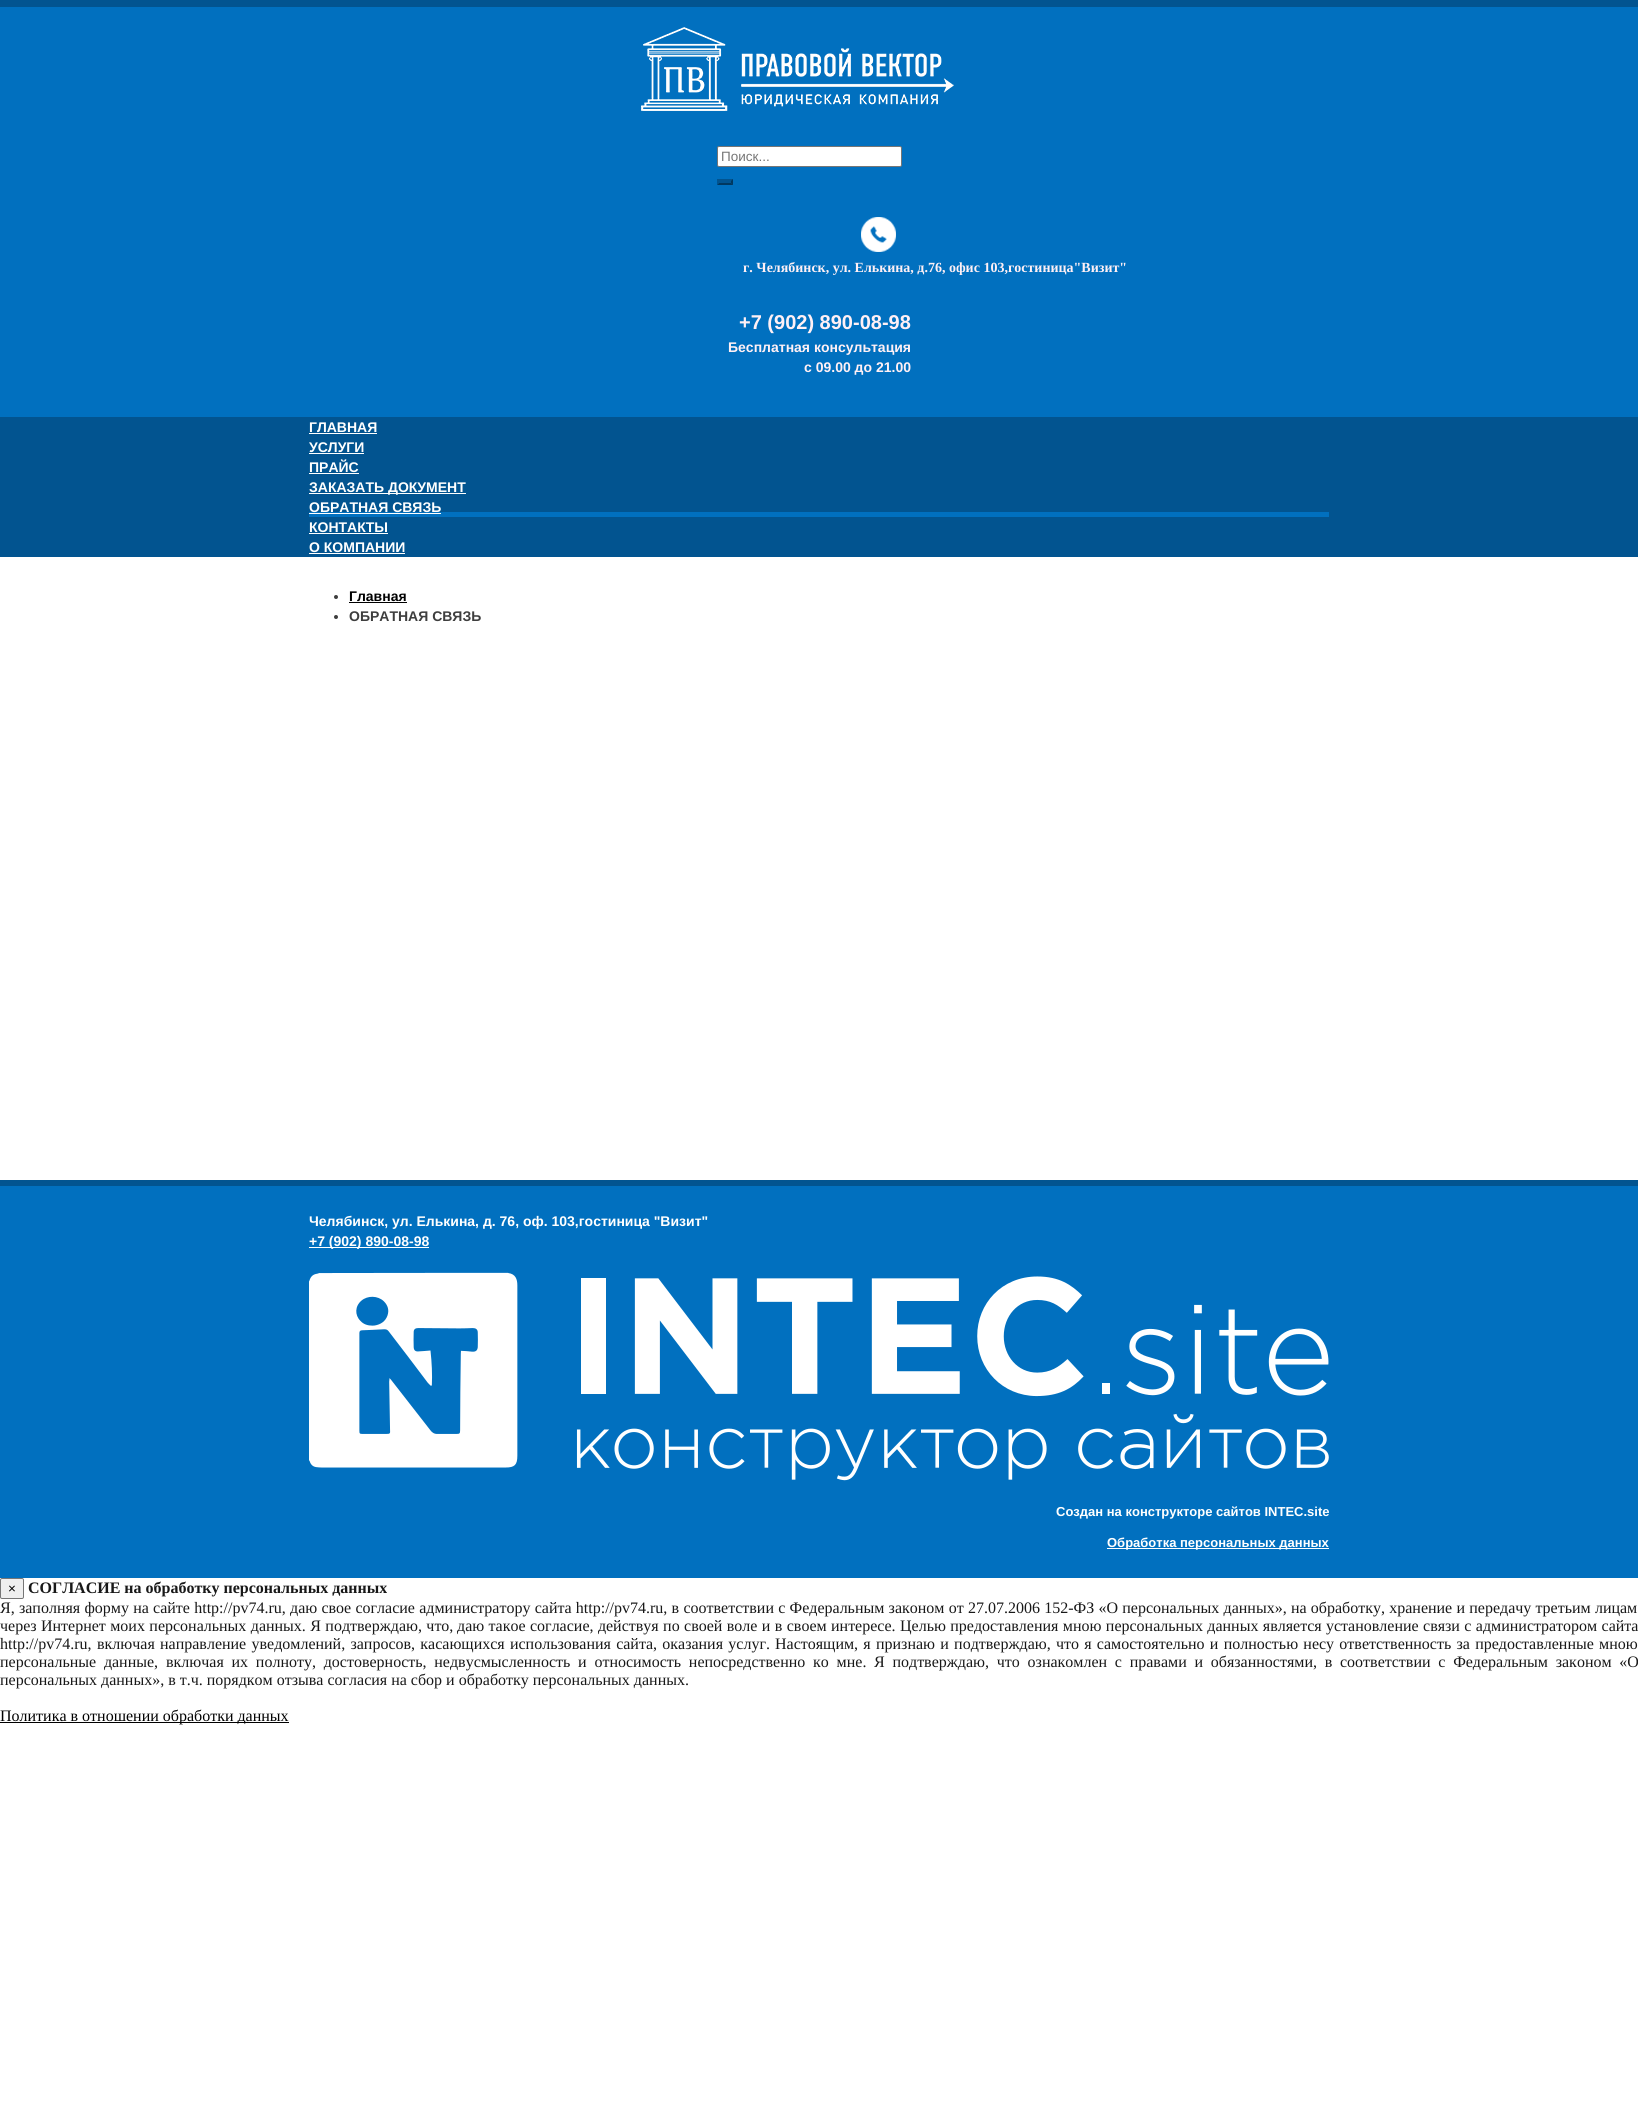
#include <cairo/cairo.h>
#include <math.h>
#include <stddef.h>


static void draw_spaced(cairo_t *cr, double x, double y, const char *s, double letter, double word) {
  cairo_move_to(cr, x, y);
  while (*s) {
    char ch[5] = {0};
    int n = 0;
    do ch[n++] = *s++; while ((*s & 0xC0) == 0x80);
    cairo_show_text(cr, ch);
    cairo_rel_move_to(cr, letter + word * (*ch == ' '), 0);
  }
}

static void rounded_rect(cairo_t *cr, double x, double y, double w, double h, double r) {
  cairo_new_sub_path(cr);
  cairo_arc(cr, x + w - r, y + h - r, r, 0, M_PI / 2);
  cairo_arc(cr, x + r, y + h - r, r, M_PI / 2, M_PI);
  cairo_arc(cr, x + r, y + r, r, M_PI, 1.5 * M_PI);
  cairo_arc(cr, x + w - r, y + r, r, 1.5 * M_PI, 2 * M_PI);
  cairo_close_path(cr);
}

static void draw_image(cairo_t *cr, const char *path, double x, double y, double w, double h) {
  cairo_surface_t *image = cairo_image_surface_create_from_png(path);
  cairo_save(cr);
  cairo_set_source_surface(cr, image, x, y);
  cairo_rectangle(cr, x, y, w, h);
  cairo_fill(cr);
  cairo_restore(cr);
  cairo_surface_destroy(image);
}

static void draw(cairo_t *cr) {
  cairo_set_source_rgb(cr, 1, 1, 1);
  cairo_paint(cr);
  cairo_set_source_rgb(cr, 2 / 255.0, 84 / 255.0, 144 / 255.0);
  cairo_rectangle(cr, 0, 0, 1638, 7);
  cairo_fill(cr);
  cairo_set_source_rgb(cr, 1 / 255.0, 112 / 255.0, 191 / 255.0);
  cairo_rectangle(cr, 0, 7, 1638, 410);
  cairo_fill(cr);
  draw_image(cr, "images/1.png", 641, 27, 313, 84);
  cairo_set_source_rgb(cr, 1, 1, 1);
  rounded_rect(cr, 717.5, 146.5, 184, 20, 1.5);
  cairo_fill_preserve(cr);
  cairo_set_source_rgb(cr, 118 / 255.0, 118 / 255.0, 118 / 255.0);
  cairo_set_line_width(cr, 1);
  cairo_stroke(cr);
  cairo_set_source_rgb(cr, 2 / 255.0, 84 / 255.0, 144 / 255.0);
  cairo_rectangle(cr, 717, 179, 16, 6);
  cairo_fill(cr);
  cairo_set_source_rgb(cr, 1 / 255.0, 56 / 255.0, 96 / 255.0);
  cairo_new_path(cr);
  cairo_move_to(cr, 733, 179);
  cairo_line_to(cr, 733, 185);
  cairo_line_to(cr, 731, 183);
  cairo_line_to(cr, 731, 181);
  cairo_close_path(cr);
  cairo_fill(cr);
  cairo_new_path(cr);
  cairo_move_to(cr, 733, 185);
  cairo_line_to(cr, 717, 185);
  cairo_line_to(cr, 719, 183);
  cairo_line_to(cr, 731, 183);
  cairo_close_path(cr);
  cairo_fill(cr);
  cairo_set_source_rgb(cr, 2 / 255.0, 84 / 255.0, 144 / 255.0);
  cairo_new_path(cr);
  cairo_move_to(cr, 717, 185);
  cairo_line_to(cr, 717, 179);
  cairo_line_to(cr, 719, 181);
  cairo_line_to(cr, 719, 183);
  cairo_close_path(cr);
  cairo_fill(cr);
  draw_image(cr, "images/2.png", 861, 217, 35, 35);
  cairo_rectangle(cr, 0, 417, 1638, 140);
  cairo_fill(cr);
  cairo_set_source_rgb(cr, 1, 1, 1);
  cairo_rectangle(cr, 309, 433, 68, 1);
  cairo_fill(cr);
  cairo_rectangle(cr, 309, 453, 55, 1);
  cairo_fill(cr);
  cairo_rectangle(cr, 309, 473, 50, 1);
  cairo_fill(cr);
  cairo_rectangle(cr, 309, 493, 157, 1);
  cairo_fill(cr);
  cairo_set_source_rgb(cr, 1 / 255.0, 112 / 255.0, 191 / 255.0);
  cairo_rectangle(cr, 309, 512, 1020, 5);
  cairo_fill(cr);
  cairo_set_source_rgb(cr, 1, 1, 1);
  cairo_rectangle(cr, 309, 513, 132, 1);
  cairo_fill(cr);
  cairo_rectangle(cr, 309, 533, 79, 1);
  cairo_fill(cr);
  cairo_rectangle(cr, 309, 553, 96, 1);
  cairo_fill(cr);
  cairo_set_source_rgb(cr, 62 / 255.0, 62 / 255.0, 62 / 255.0);
  cairo_arc(cr, 336, 597, 2, 0, 2 * M_PI);
  cairo_fill(cr);
  cairo_set_source_rgb(cr, 0, 0, 0);
  cairo_rectangle(cr, 349, 602, 58, 1);
  cairo_fill(cr);
  cairo_set_source_rgb(cr, 62 / 255.0, 62 / 255.0, 62 / 255.0);
  cairo_arc(cr, 336, 617, 2, 0, 2 * M_PI);
  cairo_fill(cr);
  cairo_set_source_rgb(cr, 1 / 255.0, 112 / 255.0, 191 / 255.0);
  cairo_rectangle(cr, 0, 1186, 1638, 392);
  cairo_fill(cr);
  cairo_set_source_rgb(cr, 2 / 255.0, 84 / 255.0, 144 / 255.0);
  cairo_rectangle(cr, 0, 1180, 1638, 6);
  cairo_fill(cr);
  cairo_set_source_rgb(cr, 1, 1, 1);
  cairo_rectangle(cr, 309, 1247, 120, 1);
  cairo_fill(cr);
  draw_image(cr, "images/3.png", 309, 1272, 1020, 209);
  cairo_rectangle(cr, 1107, 1548, 222, 1);
  cairo_fill(cr);
  cairo_set_source_rgb(cr, 239 / 255.0, 239 / 255.0, 239 / 255.0);
  rounded_rect(cr, 0.5, 1578.5, 23, 20, 1.5);
  cairo_fill_preserve(cr);
  cairo_set_source_rgb(cr, 118 / 255.0, 118 / 255.0, 118 / 255.0);
  cairo_stroke(cr);
  cairo_set_source_rgb(cr, 0, 0, 0);
  cairo_rectangle(cr, 0, 1722, 289, 1);
  cairo_fill(cr);
  cairo_select_font_face(cr, "Liberation Sans", CAIRO_FONT_SLANT_NORMAL, CAIRO_FONT_WEIGHT_NORMAL);
  cairo_set_font_size(cr, 13.5);
  cairo_set_source_rgb(cr, 117 / 255.0, 117 / 255.0, 117 / 255.0);
  cairo_move_to(cr, 721, 161);
  cairo_show_text(cr, "Поиск...");
  cairo_select_font_face(cr, "Liberation Serif", CAIRO_FONT_SLANT_NORMAL, CAIRO_FONT_WEIGHT_BOLD);
  cairo_set_font_size(cr, 14);
  cairo_set_source_rgb(cr, 1, 240 / 255.0, 245 / 255.0);
  cairo_move_to(cr, 743, 272);
  cairo_show_text(cr, "г. Челябинск, ул. Елькина, д.76, офис 103,гостиница\"Визит\"");
  cairo_select_font_face(cr, "Liberation Sans", CAIRO_FONT_SLANT_NORMAL, CAIRO_FONT_WEIGHT_BOLD);
  cairo_set_font_size(cr, 20);
  cairo_move_to(cr, 739, 329);
  cairo_show_text(cr, "+7 (902) 890-08-98");
  cairo_set_font_size(cr, 14);
  cairo_move_to(cr, 728, 352);
  cairo_show_text(cr, "Бесплатная консультация");
  cairo_move_to(cr, 804, 372);
  cairo_show_text(cr, "с 09.00 до 21.00");
  cairo_set_source_rgb(cr, 1, 1, 1);
  cairo_move_to(cr, 309, 432);
  cairo_show_text(cr, "ГЛАВНАЯ");
  cairo_move_to(cr, 309, 452);
  cairo_show_text(cr, "УСЛУГИ");
  cairo_move_to(cr, 309, 472);
  cairo_show_text(cr, "ПРАЙС");
  cairo_move_to(cr, 309, 492);
  cairo_show_text(cr, "ЗАКАЗАТЬ ДОКУМЕНТ");
  cairo_move_to(cr, 309, 512);
  cairo_show_text(cr, "ОБРАТНАЯ СВЯЗЬ");
  cairo_move_to(cr, 309, 532);
  cairo_show_text(cr, "КОНТАКТЫ");
  cairo_move_to(cr, 309, 552);
  cairo_show_text(cr, "О КОМПАНИИ");
  cairo_set_source_rgb(cr, 0, 0, 0);
  cairo_move_to(cr, 349, 601);
  cairo_show_text(cr, "Главная");
  cairo_set_source_rgb(cr, 62 / 255.0, 62 / 255.0, 62 / 255.0);
  cairo_move_to(cr, 349, 621);
  cairo_show_text(cr, "ОБРАТНАЯ СВЯЗЬ");
  cairo_set_source_rgb(cr, 1, 1, 1);
  cairo_move_to(cr, 309, 1226);
  cairo_show_text(cr, "Челябинск, ул. Елькина, д. 76, оф. 103,гостиница \"Визит\"");
  cairo_move_to(cr, 309, 1246);
  cairo_show_text(cr, "+7 (902) 890-08-98");
  cairo_set_font_size(cr, 13);
  cairo_move_to(cr, 1056, 1516);
  cairo_show_text(cr, "Создан на конструкторе сайтов INTEC.site");
  cairo_move_to(cr, 1107, 1547);
  cairo_show_text(cr, "Обработка персональных данных");
  cairo_select_font_face(cr, "Liberation Sans", CAIRO_FONT_SLANT_NORMAL, CAIRO_FONT_WEIGHT_NORMAL);
  cairo_set_font_size(cr, 13.5);
  cairo_set_source_rgb(cr, 0, 0, 0);
  cairo_move_to(cr, 8, 1593);
  cairo_show_text(cr, "×");
  cairo_select_font_face(cr, "Liberation Serif", CAIRO_FONT_SLANT_NORMAL, CAIRO_FONT_WEIGHT_BOLD);
  cairo_set_font_size(cr, 16);
  cairo_set_source_rgb(cr, 24 / 255.0, 24 / 255.0, 24 / 255.0);
  cairo_move_to(cr, 28, 1593);
  cairo_show_text(cr, "СОГЛАСИЕ на обработку персональных данных");
  cairo_select_font_face(cr, "Liberation Serif", CAIRO_FONT_SLANT_NORMAL, CAIRO_FONT_WEIGHT_NORMAL);
  draw_spaced(cr, 0, 1613, "Я, заполняя форму на сайте http://pv74.ru, даю свое согласие администратору сайта http://pv74.ru, в соответствии с Федеральным законом от 27.07.2006 152-ФЗ «О персональных данных», на обработку, хранение и передачу третьим лицам", 0, 0.25);
  draw_spaced(cr, 0, 1631, "через Интернет моих персональных данных. Я подтверждаю, что,", 0, 0.4);
  draw_spaced(cr, 457, 1631, "даю такое согласие, действуя по своей воле и в своем интересе.", 0, 0.4);
  draw_spaced(cr, 900, 1631, "Целью предоставления мною персональных данных является установление связи с администратором сайта", 0, 0.4);
  cairo_move_to(cr, 0, 1649);
  cairo_show_text(cr, "http://pv74.ru,");
  draw_spaced(cr, 97, 1649, "включая направление уведомлений, запросов, касающихся использования сайта, оказания услуг.", 0, 1.25);
  draw_spaced(cr, 775, 1649, "Настоящим, я признаю и подтверждаю, что я самостоятельно и полностью несу ответственность за предоставленные мною", 0, 1.25);
  draw_spaced(cr, 0, 1667, "персональные данные,", 0, 3.75);
  draw_spaced(cr, 166, 1667, "включая их полноту, достоверность, недвусмысленность и относимость непосредственно ко мне.", 0, 3.75);
  draw_spaced(cr, 874, 1667, "Я подтверждаю, что ознакомлен с правами и обязанностями, в соответствии с Федеральным законом «О", 0, 3.75);
  cairo_move_to(cr, 0, 1685);
  cairo_show_text(cr, "персональных данных», в т.ч. порядком отзыва согласия на сбор и обработку персональных данных.");
  cairo_set_source_rgb(cr, 0, 0, 0);
  cairo_move_to(cr, 0, 1721);
  cairo_show_text(cr, "Политика в отношении обработки данных");
}

int main(void) {
  cairo_surface_t *surface = cairo_image_surface_create(CAIRO_FORMAT_RGB24, 1638, 2101);
  cairo_t *cr = cairo_create(surface);
  cairo_font_options_t *options = cairo_font_options_create();
  cairo_font_options_set_hint_metrics(options, CAIRO_HINT_METRICS_OFF);
  cairo_font_options_set_hint_style(options, CAIRO_HINT_STYLE_NONE);
  cairo_set_font_options(cr, options);
  cairo_set_miter_limit(cr, 4);
  draw(cr);
  cairo_surface_write_to_png(surface, "out.png");
  cairo_font_options_destroy(options);
  cairo_destroy(cr);
  cairo_surface_destroy(surface);
  return 0;
}
